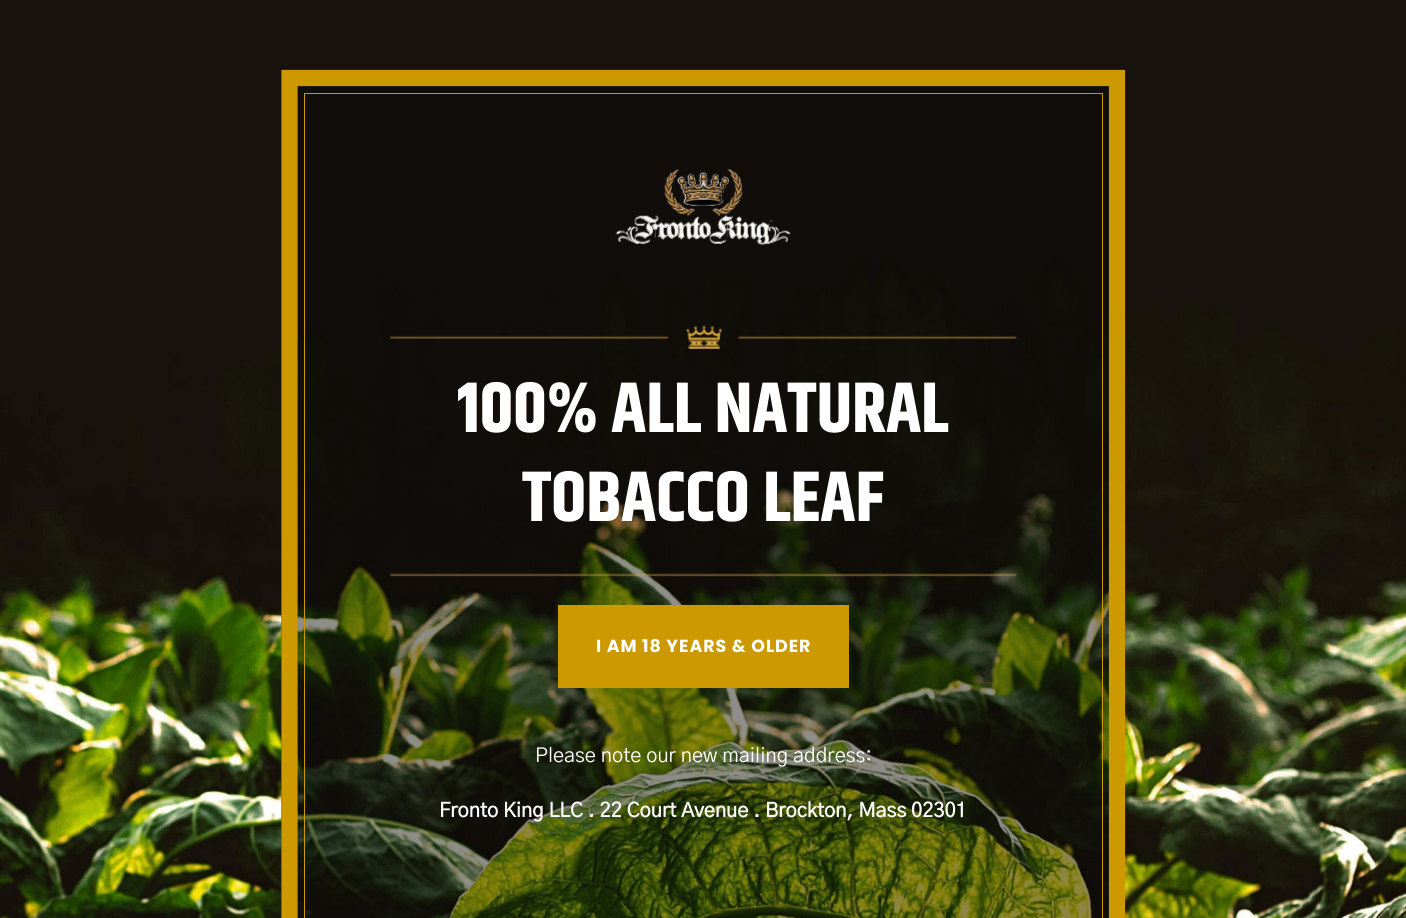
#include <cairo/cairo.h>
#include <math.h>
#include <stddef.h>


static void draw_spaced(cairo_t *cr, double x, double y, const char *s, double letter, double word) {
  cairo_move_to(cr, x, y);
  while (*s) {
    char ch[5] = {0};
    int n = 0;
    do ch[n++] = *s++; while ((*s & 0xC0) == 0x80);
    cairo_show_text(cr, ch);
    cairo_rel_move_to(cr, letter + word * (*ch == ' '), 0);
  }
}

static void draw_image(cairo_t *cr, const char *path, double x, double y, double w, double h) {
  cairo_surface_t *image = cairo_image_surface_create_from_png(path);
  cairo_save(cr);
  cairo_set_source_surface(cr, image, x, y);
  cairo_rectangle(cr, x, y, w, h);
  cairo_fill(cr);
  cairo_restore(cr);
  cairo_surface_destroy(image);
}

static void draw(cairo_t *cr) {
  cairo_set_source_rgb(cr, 1, 1, 1);
  cairo_paint(cr);
  draw_image(cr, "images/1.png", 0, 0, 1406, 918);
  cairo_set_source_rgba(cr, 8 / 255.0, 8 / 255.0, 8 / 255.0, 0.45);
  cairo_new_path(cr);
  cairo_move_to(cr, 283.5, 70);
  cairo_line_to(cr, 1122.5, 70);
  cairo_curve_to(cr, 1124, 70, 1125, 71, 1125, 72.5);
  cairo_line_to(cr, 1125, 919);
  cairo_line_to(cr, 281, 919);
  cairo_line_to(cr, 281, 72.5);
  cairo_curve_to(cr, 281, 71, 282, 70, 283.5, 70);
  cairo_close_path(cr);
  cairo_fill(cr);
  cairo_new_path(cr);
  cairo_move_to(cr, 289.5, 78);
  cairo_line_to(cr, 1117, 78);
  cairo_line_to(cr, 1117, 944.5);
  cairo_line_to(cr, 289.5, 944.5);
  cairo_close_path(cr);
  cairo_set_source_rgb(cr, 204 / 255.0, 153 / 255.0, 0);
  cairo_set_line_width(cr, 16.2);
  cairo_stroke(cr);
  cairo_rectangle(cr, 304.5, 93.5, 798, 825);
  cairo_set_line_width(cr, 1);
  cairo_stroke(cr);
  draw_image(cr, "images/2.png", 615, 169, 176, 76);
  draw_image(cr, "images/3.png", 389, 325, 628, 24);
  draw_image(cr, "images/4.png", 389, 573, 628, 4);
  cairo_rectangle(cr, 558, 605, 291, 83);
  cairo_fill(cr);
  cairo_select_font_face(cr, "Khand", CAIRO_FONT_SLANT_NORMAL, CAIRO_FONT_WEIGHT_BOLD);
  cairo_set_font_size(cr, 71.25);
  cairo_set_source_rgb(cr, 1, 1, 1);
  cairo_move_to(cr, 457, 432);
  cairo_show_text(cr, "100% ALL NATURAL");
  cairo_move_to(cr, 522, 521);
  cairo_show_text(cr, "TOBACCO LEAF");
  cairo_select_font_face(cr, "Poppins", CAIRO_FONT_SLANT_NORMAL, CAIRO_FONT_WEIGHT_BOLD);
  cairo_set_font_size(cr, 17.5);
  draw_spaced(cr, 596, 652, "I AM 18 YEARS & OLDER", 0.9, 0);
  cairo_select_font_face(cr, "Gothic A1", CAIRO_FONT_SLANT_NORMAL, CAIRO_FONT_WEIGHT_NORMAL);
  cairo_set_font_size(cr, 20);
  cairo_move_to(cr, 535, 762);
  cairo_show_text(cr, "Please note our new mailing address:");
  cairo_select_font_face(cr, "Gothic A1", CAIRO_FONT_SLANT_NORMAL, CAIRO_FONT_WEIGHT_BOLD);
  cairo_move_to(cr, 439, 817);
  cairo_show_text(cr, "Fronto King LLC . 22 Court Avenue . Brockton, Mass 02301");
}

int main(void) {
  cairo_surface_t *surface = cairo_image_surface_create(CAIRO_FORMAT_RGB24, 1406, 918);
  cairo_t *cr = cairo_create(surface);
  cairo_font_options_t *options = cairo_font_options_create();
  cairo_font_options_set_hint_metrics(options, CAIRO_HINT_METRICS_OFF);
  cairo_font_options_set_hint_style(options, CAIRO_HINT_STYLE_NONE);
  cairo_set_font_options(cr, options);
  cairo_set_miter_limit(cr, 4);
  draw(cr);
  cairo_surface_write_to_png(surface, "out.png");
  cairo_font_options_destroy(options);
  cairo_destroy(cr);
  cairo_surface_destroy(surface);
  return 0;
}
